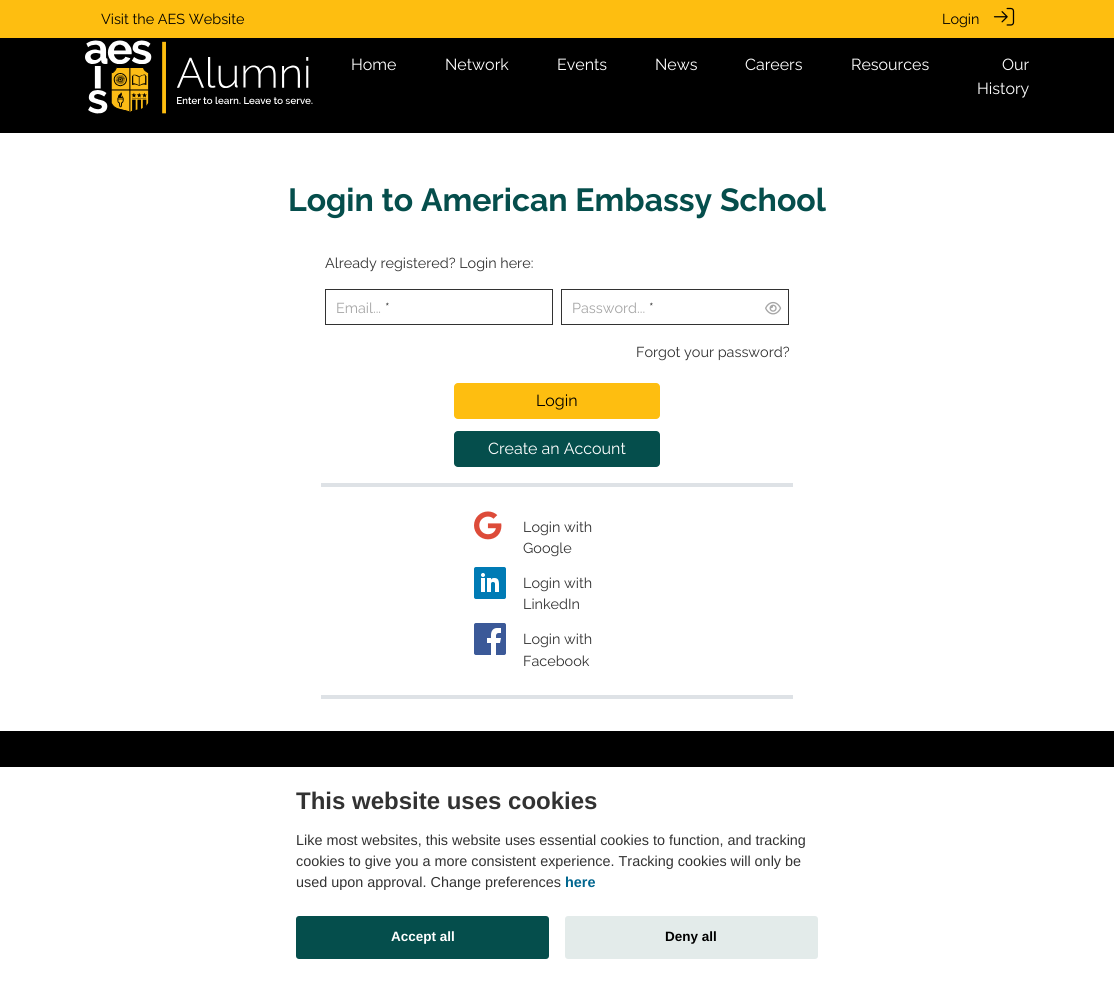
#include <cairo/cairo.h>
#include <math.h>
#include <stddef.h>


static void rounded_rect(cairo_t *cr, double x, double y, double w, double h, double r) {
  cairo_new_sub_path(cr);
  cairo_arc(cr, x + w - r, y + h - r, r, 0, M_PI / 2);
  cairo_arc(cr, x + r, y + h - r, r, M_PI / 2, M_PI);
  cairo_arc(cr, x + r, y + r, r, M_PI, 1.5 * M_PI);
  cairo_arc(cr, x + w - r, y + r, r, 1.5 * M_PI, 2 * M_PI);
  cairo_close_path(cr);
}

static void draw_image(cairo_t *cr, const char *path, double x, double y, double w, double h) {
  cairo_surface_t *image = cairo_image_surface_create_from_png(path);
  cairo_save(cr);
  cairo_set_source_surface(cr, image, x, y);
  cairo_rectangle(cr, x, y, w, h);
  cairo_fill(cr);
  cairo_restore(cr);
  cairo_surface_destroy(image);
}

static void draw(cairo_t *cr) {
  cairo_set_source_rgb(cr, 0, 0, 0);
  cairo_paint(cr);
  cairo_set_source_rgb(cr, 254 / 255.0, 190 / 255.0, 16 / 255.0);
  cairo_rectangle(cr, 0, 0, 1114, 38);
  cairo_fill(cr);
  draw_image(cr, "images/1.png", 993, 7, 22, 19);
  draw_image(cr, "images/2.png", 85, 40, 228, 74);
  cairo_set_source_rgb(cr, 1, 1, 1);
  cairo_rectangle(cr, 0, 133, 1114, 598);
  cairo_fill(cr);
  cairo_rectangle(cr, 325.5, 289.5, 227, 35);
  cairo_set_source_rgb(cr, 50 / 255.0, 50 / 255.0, 50 / 255.0);
  cairo_set_line_width(cr, 1);
  cairo_stroke(cr);
  cairo_rectangle(cr, 561.5, 289.5, 227, 35);
  cairo_stroke(cr);
  draw_image(cr, "images/3.png", 765, 301, 17, 14);
  cairo_set_source_rgb(cr, 254 / 255.0, 190 / 255.0, 16 / 255.0);
  rounded_rect(cr, 454, 383, 206, 36, 4);
  cairo_fill(cr);
  cairo_set_source_rgb(cr, 5 / 255.0, 78 / 255.0, 76 / 255.0);
  rounded_rect(cr, 454, 431, 206, 36, 4);
  cairo_fill(cr);
  cairo_set_source_rgb(cr, 222 / 255.0, 226 / 255.0, 230 / 255.0);
  cairo_rectangle(cr, 321, 483, 472, 4);
  cairo_fill(cr);
  draw_image(cr, "images/4.png", 474, 511, 28, 29);
  draw_image(cr, "images/5.png", 474, 567, 32, 32);
  draw_image(cr, "images/6.png", 474, 623, 32, 32);
  cairo_rectangle(cr, 321, 695, 472, 4);
  cairo_fill(cr);
  cairo_set_source_rgb(cr, 1, 1, 1);
  cairo_rectangle(cr, 0, 767, 1114, 220);
  cairo_fill(cr);
  cairo_set_source_rgb(cr, 5 / 255.0, 78 / 255.0, 76 / 255.0);
  rounded_rect(cr, 296, 916, 253, 43, 3);
  cairo_fill(cr);
  cairo_set_source_rgb(cr, 227 / 255.0, 235 / 255.0, 234 / 255.0);
  rounded_rect(cr, 565, 916, 253, 43, 3);
  cairo_fill(cr);
  cairo_select_font_face(cr, "Raleway", CAIRO_FONT_SLANT_NORMAL, CAIRO_FONT_WEIGHT_NORMAL);
  cairo_set_font_size(cr, 14.4);
  cairo_set_source_rgb(cr, 0, 0, 0);
  cairo_move_to(cr, 101, 24);
  cairo_show_text(cr, "Visit the AES Website");
  cairo_move_to(cr, 942, 24);
  cairo_show_text(cr, "Login");
  cairo_set_font_size(cr, 16);
  cairo_set_source_rgb(cr, 1, 1, 1);
  cairo_move_to(cr, 351, 70);
  cairo_show_text(cr, "Home");
  cairo_move_to(cr, 445, 70);
  cairo_show_text(cr, "Network");
  cairo_move_to(cr, 557, 70);
  cairo_show_text(cr, "Events");
  cairo_move_to(cr, 655, 70);
  cairo_show_text(cr, "News");
  cairo_move_to(cr, 745, 70);
  cairo_show_text(cr, "Careers");
  cairo_move_to(cr, 851, 70);
  cairo_show_text(cr, "Resources");
  cairo_move_to(cr, 1002, 70);
  cairo_show_text(cr, "Our");
  cairo_move_to(cr, 977, 94);
  cairo_show_text(cr, "History");
  cairo_select_font_face(cr, "Raleway", CAIRO_FONT_SLANT_NORMAL, CAIRO_FONT_WEIGHT_BOLD);
  cairo_set_font_size(cr, 32);
  cairo_set_source_rgb(cr, 5 / 255.0, 78 / 255.0, 76 / 255.0);
  cairo_move_to(cr, 288, 211);
  cairo_show_text(cr, "Login to American Embassy School");
  cairo_select_font_face(cr, "Raleway", CAIRO_FONT_SLANT_NORMAL, CAIRO_FONT_WEIGHT_NORMAL);
  cairo_set_font_size(cr, 14.4);
  cairo_set_source_rgb(cr, 50 / 255.0, 50 / 255.0, 50 / 255.0);
  cairo_move_to(cr, 325, 268);
  cairo_show_text(cr, "Already registered? Login here:");
  cairo_set_source_rgb(cr, 166 / 255.0, 166 / 255.0, 166 / 255.0);
  cairo_move_to(cr, 336, 313);
  cairo_show_text(cr, "Email...");
  cairo_set_source_rgb(cr, 50 / 255.0, 50 / 255.0, 50 / 255.0);
  cairo_move_to(cr, 385, 313);
  cairo_show_text(cr, "*");
  cairo_set_source_rgb(cr, 166 / 255.0, 166 / 255.0, 166 / 255.0);
  cairo_move_to(cr, 572, 313);
  cairo_show_text(cr, "Password...");
  cairo_set_source_rgb(cr, 50 / 255.0, 50 / 255.0, 50 / 255.0);
  cairo_move_to(cr, 649, 313);
  cairo_show_text(cr, "*");
  cairo_move_to(cr, 636, 357);
  cairo_show_text(cr, "Forgot your password?");
  cairo_set_font_size(cr, 16);
  cairo_set_source_rgb(cr, 0, 0, 0);
  cairo_move_to(cr, 536, 406);
  cairo_show_text(cr, "Login");
  cairo_set_source_rgb(cr, 1, 1, 1);
  cairo_move_to(cr, 488, 454);
  cairo_show_text(cr, "Create an Account");
  cairo_set_font_size(cr, 14.4);
  cairo_set_source_rgb(cr, 50 / 255.0, 50 / 255.0, 50 / 255.0);
  cairo_move_to(cr, 523, 532);
  cairo_show_text(cr, "Login with");
  cairo_move_to(cr, 523, 553);
  cairo_show_text(cr, "Google");
  cairo_move_to(cr, 523, 588);
  cairo_show_text(cr, "Login with");
  cairo_move_to(cr, 523, 609);
  cairo_show_text(cr, "LinkedIn");
  cairo_move_to(cr, 523, 644);
  cairo_show_text(cr, "Login with");
  cairo_move_to(cr, 523, 666);
  cairo_show_text(cr, "Facebook");
  cairo_select_font_face(cr, "Liberation Sans", CAIRO_FONT_SLANT_NORMAL, CAIRO_FONT_WEIGHT_BOLD);
  cairo_set_font_size(cr, 24);
  cairo_move_to(cr, 296, 809);
  cairo_show_text(cr, "This website uses cookies");
  cairo_select_font_face(cr, "Liberation Sans", CAIRO_FONT_SLANT_NORMAL, CAIRO_FONT_WEIGHT_NORMAL);
  cairo_set_font_size(cr, 14.4);
  cairo_move_to(cr, 296, 845);
  cairo_show_text(cr, "Like most websites, this website uses essential cookies to function, and tracking");
  cairo_move_to(cr, 296, 866);
  cairo_show_text(cr, "cookies to give you a more consistent experience. Tracking cookies will only be");
  cairo_move_to(cr, 296, 887);
  cairo_show_text(cr, "used upon approval. Change preferences");
  cairo_select_font_face(cr, "Liberation Sans", CAIRO_FONT_SLANT_NORMAL, CAIRO_FONT_WEIGHT_BOLD);
  cairo_set_source_rgb(cr, 1 / 255.0, 102 / 255.0, 143 / 255.0);
  cairo_move_to(cr, 565, 887);
  cairo_show_text(cr, "here");
  cairo_set_font_size(cr, 13.5);
  cairo_set_source_rgb(cr, 1, 1, 1);
  cairo_move_to(cr, 391, 941);
  cairo_show_text(cr, "Accept all");
  cairo_set_source_rgb(cr, 0, 0, 0);
  cairo_move_to(cr, 665, 941);
  cairo_show_text(cr, "Deny all");
}

int main(void) {
  cairo_surface_t *surface = cairo_image_surface_create(CAIRO_FORMAT_RGB24, 1114, 987);
  cairo_t *cr = cairo_create(surface);
  cairo_font_options_t *options = cairo_font_options_create();
  cairo_font_options_set_hint_metrics(options, CAIRO_HINT_METRICS_OFF);
  cairo_font_options_set_hint_style(options, CAIRO_HINT_STYLE_NONE);
  cairo_set_font_options(cr, options);
  cairo_set_miter_limit(cr, 4);
  draw(cr);
  cairo_surface_write_to_png(surface, "out.png");
  cairo_font_options_destroy(options);
  cairo_destroy(cr);
  cairo_surface_destroy(surface);
  return 0;
}
